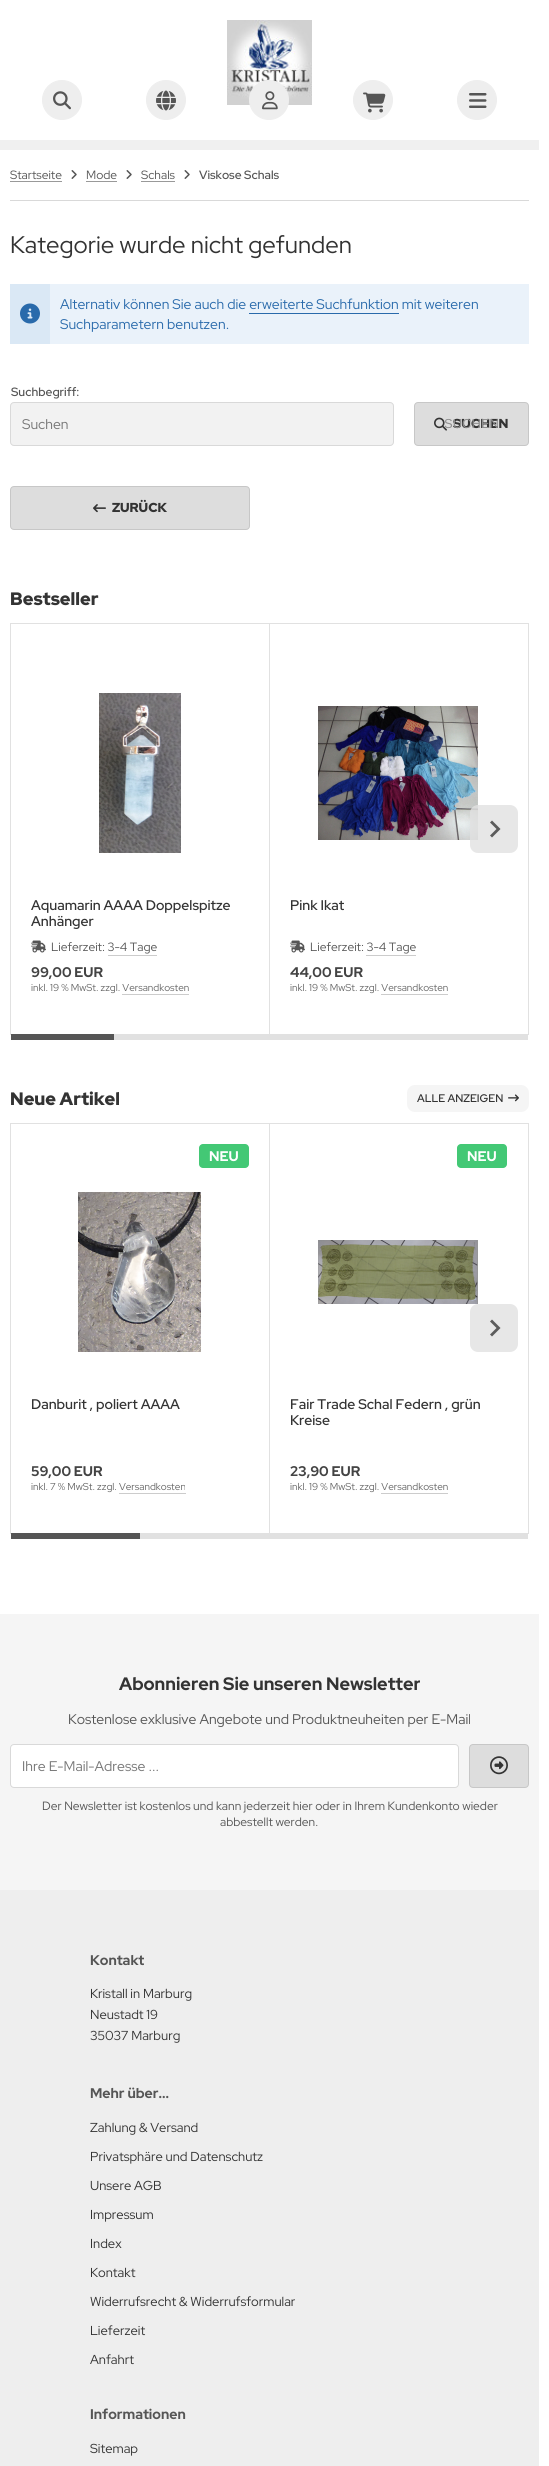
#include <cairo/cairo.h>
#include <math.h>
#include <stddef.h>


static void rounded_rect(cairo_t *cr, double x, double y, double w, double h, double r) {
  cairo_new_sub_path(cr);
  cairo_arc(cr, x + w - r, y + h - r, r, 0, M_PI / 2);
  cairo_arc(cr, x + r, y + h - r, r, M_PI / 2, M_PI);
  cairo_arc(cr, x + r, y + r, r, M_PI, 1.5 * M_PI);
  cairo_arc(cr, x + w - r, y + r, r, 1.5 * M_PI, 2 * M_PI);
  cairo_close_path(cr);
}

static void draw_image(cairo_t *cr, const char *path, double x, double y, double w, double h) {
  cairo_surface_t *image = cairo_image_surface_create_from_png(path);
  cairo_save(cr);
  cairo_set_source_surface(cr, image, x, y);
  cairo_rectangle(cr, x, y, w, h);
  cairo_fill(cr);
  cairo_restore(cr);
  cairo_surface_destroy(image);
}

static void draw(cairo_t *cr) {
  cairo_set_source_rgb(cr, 1, 1, 1);
  cairo_paint(cr);
  cairo_set_source_rgb(cr, 240 / 255.0, 240 / 255.0, 240 / 255.0);
  cairo_rectangle(cr, 0, 140, 539, 10);
  cairo_fill(cr);
  cairo_set_source_rgb(cr, 238 / 255.0, 238 / 255.0, 238 / 255.0);
  cairo_arc(cr, 62, 100, 19.5, 0, 2 * M_PI);
  cairo_fill_preserve(cr);
  cairo_set_line_width(cr, 1);
  cairo_stroke(cr);
  draw_image(cr, "images/1.png", 53, 91, 18, 19);
  cairo_arc(cr, 166, 100, 19.5, 0, 2 * M_PI);
  cairo_fill_preserve(cr);
  cairo_stroke(cr);
  draw_image(cr, "images/2.png", 156, 90, 20, 21);
  draw_image(cr, "images/3.png", 227, 20, 85, 85);
  cairo_arc(cr, 269, 100, 19.5, 0, 2 * M_PI);
  cairo_fill_preserve(cr);
  cairo_stroke(cr);
  draw_image(cr, "images/4.png", 262, 91, 16, 19);
  cairo_arc(cr, 373, 100, 19.5, 0, 2 * M_PI);
  cairo_fill_preserve(cr);
  cairo_stroke(cr);
  draw_image(cr, "images/5.png", 363, 92, 23, 21);
  cairo_arc(cr, 477, 100, 19.5, 0, 2 * M_PI);
  cairo_fill_preserve(cr);
  cairo_stroke(cr);
  draw_image(cr, "images/6.png", 469, 93, 18, 15);
  cairo_set_source_rgb(cr, 217 / 255.0, 217 / 255.0, 217 / 255.0);
  cairo_rectangle(cr, 10, 200, 519, 1);
  cairo_fill(cr);
  cairo_set_source_rgb(cr, 153 / 255.0, 153 / 255.0, 153 / 255.0);
  cairo_rectangle(cr, 10, 181, 52, 1);
  cairo_fill(cr);
  draw_image(cr, "images/7.png", 71, 170, 6, 9);
  cairo_rectangle(cr, 86, 181, 31, 1);
  cairo_fill(cr);
  draw_image(cr, "images/7.png", 126, 170, 6, 9);
  cairo_rectangle(cr, 141, 181, 34, 1);
  cairo_fill(cr);
  draw_image(cr, "images/7.png", 184, 170, 6, 9);
  cairo_set_source_rgb(cr, 234 / 255.0, 242 / 255.0, 250 / 255.0);
  cairo_rectangle(cr, 50, 284, 479, 60);
  cairo_fill(cr);
  cairo_set_source_rgb(cr, 218 / 255.0, 232 / 255.0, 245 / 255.0);
  cairo_rectangle(cr, 10, 284, 40, 60);
  cairo_fill(cr);
  draw_image(cr, "images/8.png", 20, 303, 20, 21);
  cairo_set_source_rgb(cr, 41 / 255.0, 106 / 255.0, 171 / 255.0);
  cairo_rectangle(cr, 249, 313, 150, 1);
  cairo_fill(cr);
  cairo_set_source_rgb(cr, 242 / 255.0, 242 / 255.0, 242 / 255.0);
  rounded_rect(cr, 10.5, 402.5, 383, 43, 3.5);
  cairo_fill_preserve(cr);
  cairo_set_source_rgb(cr, 217 / 255.0, 217 / 255.0, 217 / 255.0);
  cairo_stroke(cr);
  cairo_set_source_rgb(cr, 221 / 255.0, 221 / 255.0, 221 / 255.0);
  rounded_rect(cr, 414, 402, 115, 44, 4);
  cairo_fill(cr);
  rounded_rect(cr, 414.5, 402.5, 114, 43, 3.5);
  cairo_set_source_rgba(cr, 0, 0, 0, 0.1);
  cairo_stroke(cr);
  draw_image(cr, "images/9.png", 434, 417, 13, 14);
  cairo_set_source_rgb(cr, 221 / 255.0, 221 / 255.0, 221 / 255.0);
  rounded_rect(cr, 10, 486, 240, 44, 4);
  cairo_fill(cr);
  rounded_rect(cr, 10.5, 486.5, 239, 43, 3.5);
  cairo_set_source_rgba(cr, 0, 0, 0, 0.1);
  cairo_stroke(cr);
  draw_image(cr, "images/10.png", 93, 504, 13, 9);
  cairo_rectangle(cr, 10.5, 623.5, 518, 411);
  cairo_set_source_rgb(cr, 225 / 255.0, 225 / 255.0, 225 / 255.0);
  cairo_stroke(cr);
  draw_image(cr, "images/13.png", 318, 706, 160, 134);
  cairo_set_source_rgba(cr, 225 / 255.0, 225 / 255.0, 225 / 255.0, 0.8);
  rounded_rect(cr, 470, 805, 48, 48, 8);
  cairo_fill(cr);
  cairo_set_source_rgb(cr, 92 / 255.0, 92 / 255.0, 92 / 255.0);
  cairo_new_path(cr);
  cairo_move_to(cr, 492, 820.5);
  cairo_line_to(cr, 490, 822.5);
  cairo_line_to(cr, 496.5, 829);
  cairo_line_to(cr, 490, 835.5);
  cairo_line_to(cr, 492, 837.5);
  cairo_line_to(cr, 500.5, 829);
  cairo_close_path(cr);
  cairo_fill(cr);
  cairo_set_source_rgb(cr, 225 / 255.0, 225 / 255.0, 225 / 255.0);
  cairo_rectangle(cr, 269, 624, 1, 410);
  cairo_fill(cr);
  draw_image(cr, "images/11.png", 99, 693, 82, 160);
  draw_image(cr, "images/12.png", 31, 940, 15, 13);
  cairo_set_source_rgb(cr, 204 / 255.0, 204 / 255.0, 204 / 255.0);
  cairo_rectangle(cr, 108, 955, 49, 1);
  cairo_fill(cr);
  cairo_rectangle(cr, 122, 994, 67, 1);
  cairo_fill(cr);
  draw_image(cr, "images/12.png", 290, 940, 15, 13);
  cairo_rectangle(cr, 366, 955, 50, 1);
  cairo_fill(cr);
  cairo_rectangle(cr, 381, 994, 67, 1);
  cairo_fill(cr);
  cairo_set_source_rgb(cr, 85 / 255.0, 85 / 255.0, 85 / 255.0);
  cairo_rectangle(cr, 11, 1034, 103, 6);
  cairo_fill(cr);
  cairo_set_source_rgb(cr, 225 / 255.0, 225 / 255.0, 225 / 255.0);
  cairo_rectangle(cr, 114, 1035, 414, 5);
  cairo_fill(cr);
  cairo_set_source_rgb(cr, 245 / 255.0, 245 / 255.0, 245 / 255.0);
  rounded_rect(cr, 407, 1085, 122, 27, 8);
  cairo_fill(cr);
  draw_image(cr, "images/14.png", 508, 1094, 11, 8);
  cairo_rectangle(cr, 10.5, 1123.5, 518, 410);
  cairo_set_source_rgb(cr, 225 / 255.0, 225 / 255.0, 225 / 255.0);
  cairo_stroke(cr);
  cairo_rectangle(cr, 269, 1124, 1, 409);
  cairo_fill(cr);
  cairo_set_source_rgb(cr, 67 / 255.0, 200 / 255.0, 117 / 255.0);
  rounded_rect(cr, 199, 1144, 50, 24, 4);
  cairo_fill(cr);
  draw_image(cr, "images/15.png", 78, 1192, 123, 160);
  cairo_set_source_rgb(cr, 204 / 255.0, 204 / 255.0, 204 / 255.0);
  cairo_rectangle(cr, 119, 1493, 67, 1);
  cairo_fill(cr);
  cairo_set_source_rgb(cr, 67 / 255.0, 200 / 255.0, 117 / 255.0);
  rounded_rect(cr, 457, 1144, 50, 24, 4);
  cairo_fill(cr);
  draw_image(cr, "images/16.png", 318, 1240, 160, 64);
  cairo_set_source_rgb(cr, 204 / 255.0, 204 / 255.0, 204 / 255.0);
  cairo_rectangle(cr, 381, 1493, 67, 1);
  cairo_fill(cr);
  cairo_set_source_rgb(cr, 231 / 255.0, 231 / 255.0, 231 / 255.0);
  rounded_rect(cr, 470, 1304, 48, 48, 8);
  cairo_fill(cr);
  cairo_set_source_rgb(cr, 92 / 255.0, 92 / 255.0, 92 / 255.0);
  cairo_new_path(cr);
  cairo_move_to(cr, 492, 1319.5);
  cairo_line_to(cr, 490, 1321.5);
  cairo_line_to(cr, 496.5, 1328);
  cairo_line_to(cr, 490, 1334.5);
  cairo_line_to(cr, 492, 1336.5);
  cairo_line_to(cr, 500.5, 1328);
  cairo_close_path(cr);
  cairo_fill(cr);
  cairo_set_source_rgb(cr, 85 / 255.0, 85 / 255.0, 85 / 255.0);
  cairo_rectangle(cr, 11, 1533, 129, 6);
  cairo_fill(cr);
  cairo_set_source_rgb(cr, 225 / 255.0, 225 / 255.0, 225 / 255.0);
  cairo_rectangle(cr, 140, 1534, 388, 5);
  cairo_fill(cr);
  cairo_set_source_rgb(cr, 245 / 255.0, 245 / 255.0, 245 / 255.0);
  cairo_rectangle(cr, 0, 1614, 539, 276);
  cairo_fill(cr);
  cairo_set_source_rgb(cr, 1, 1, 1);
  rounded_rect(cr, 10.5, 1744.5, 448, 43, 3.5);
  cairo_fill_preserve(cr);
  cairo_set_source_rgb(cr, 217 / 255.0, 217 / 255.0, 217 / 255.0);
  cairo_stroke(cr);
  cairo_set_source_rgb(cr, 221 / 255.0, 221 / 255.0, 221 / 255.0);
  rounded_rect(cr, 469, 1744, 60, 44, 4);
  cairo_fill(cr);
  rounded_rect(cr, 469.5, 1744.5, 59, 43, 3.5);
  cairo_set_source_rgba(cr, 0, 0, 0, 0.1);
  cairo_stroke(cr);
  draw_image(cr, "images/17.png", 490, 1756, 18, 19);
  cairo_set_source_rgb(cr, 238 / 255.0, 238 / 255.0, 238 / 255.0);
  cairo_rectangle(cr, 0, 1890, 539, 576);
  cairo_fill(cr);
  cairo_select_font_face(cr, "Red Hat Display", CAIRO_FONT_SLANT_NORMAL, CAIRO_FONT_WEIGHT_NORMAL);
  cairo_set_font_size(cr, 12);
  cairo_set_source_rgb(cr, 85 / 255.0, 85 / 255.0, 85 / 255.0);
  cairo_move_to(cr, 10, 179);
  cairo_show_text(cr, "Startseite");
  cairo_move_to(cr, 86, 179);
  cairo_show_text(cr, "Mode");
  cairo_move_to(cr, 141, 179);
  cairo_show_text(cr, "Schals");
  cairo_select_font_face(cr, "Red Hat Display SemiBold", CAIRO_FONT_SLANT_NORMAL, CAIRO_FONT_WEIGHT_NORMAL);
  cairo_move_to(cr, 199, 179);
  cairo_show_text(cr, "Viskose Schals");
  cairo_select_font_face(cr, "Red Hat Display", CAIRO_FONT_SLANT_NORMAL, CAIRO_FONT_WEIGHT_NORMAL);
  cairo_set_font_size(cr, 24);
  cairo_set_source_rgb(cr, 51 / 255.0, 51 / 255.0, 51 / 255.0);
  cairo_move_to(cr, 10, 253);
  cairo_show_text(cr, "Kategorie wurde nicht gefunden");
  cairo_set_font_size(cr, 14);
  cairo_set_source_rgb(cr, 41 / 255.0, 106 / 255.0, 171 / 255.0);
  cairo_move_to(cr, 60, 309);
  cairo_show_text(cr, "Alternativ können Sie auch die erweiterte Suchfunktion mit weiteren");
  cairo_move_to(cr, 60, 329);
  cairo_show_text(cr, "Suchparametern benutzen.");
  cairo_select_font_face(cr, "Red Hat Display SemiBold", CAIRO_FONT_SLANT_NORMAL, CAIRO_FONT_WEIGHT_NORMAL);
  cairo_set_font_size(cr, 12);
  cairo_set_source_rgb(cr, 85 / 255.0, 85 / 255.0, 85 / 255.0);
  cairo_move_to(cr, 11, 396);
  cairo_show_text(cr, "Suchbegriff:");
  cairo_select_font_face(cr, "Red Hat Display", CAIRO_FONT_SLANT_NORMAL, CAIRO_FONT_WEIGHT_NORMAL);
  cairo_set_font_size(cr, 14);
  cairo_set_source_rgb(cr, 117 / 255.0, 117 / 255.0, 117 / 255.0);
  cairo_move_to(cr, 22, 429);
  cairo_show_text(cr, "Suchen");
  cairo_select_font_face(cr, "Red Hat Display Black", CAIRO_FONT_SLANT_NORMAL, CAIRO_FONT_WEIGHT_NORMAL);
  cairo_set_font_size(cr, 13);
  cairo_set_source_rgb(cr, 51 / 255.0, 51 / 255.0, 51 / 255.0);
  cairo_move_to(cr, 453, 428);
  cairo_show_text(cr, "SUCHEN");
  cairo_select_font_face(cr, "Liberation Sans", CAIRO_FONT_SLANT_NORMAL, CAIRO_FONT_WEIGHT_NORMAL);
  cairo_set_source_rgb(cr, 142 / 255.0, 142 / 255.0, 142 / 255.0);
  cairo_move_to(cr, 444, 428);
  cairo_show_text(cr, "SUCHEN");
  cairo_select_font_face(cr, "Red Hat Display Black", CAIRO_FONT_SLANT_NORMAL, CAIRO_FONT_WEIGHT_NORMAL);
  cairo_set_source_rgb(cr, 51 / 255.0, 51 / 255.0, 51 / 255.0);
  cairo_move_to(cr, 112, 512);
  cairo_show_text(cr, "ZURÜCK");
  cairo_set_font_size(cr, 18);
  cairo_move_to(cr, 10, 605);
  cairo_show_text(cr, "Bestseller");
  cairo_select_font_face(cr, "Red Hat Display SemiBold", CAIRO_FONT_SLANT_NORMAL, CAIRO_FONT_WEIGHT_NORMAL);
  cairo_set_font_size(cr, 14);
  cairo_move_to(cr, 31, 910);
  cairo_show_text(cr, "Aquamarin AAAA Doppelspitze");
  cairo_move_to(cr, 31, 926);
  cairo_show_text(cr, "Anhänger");
  cairo_select_font_face(cr, "Red Hat Display", CAIRO_FONT_SLANT_NORMAL, CAIRO_FONT_WEIGHT_NORMAL);
  cairo_set_font_size(cr, 12);
  cairo_set_source_rgb(cr, 85 / 255.0, 85 / 255.0, 85 / 255.0);
  cairo_move_to(cr, 51, 951);
  cairo_show_text(cr, "Lieferzeit: 3-4 Tage");
  cairo_select_font_face(cr, "Red Hat Display", CAIRO_FONT_SLANT_NORMAL, CAIRO_FONT_WEIGHT_BOLD);
  cairo_set_font_size(cr, 14);
  cairo_set_source_rgb(cr, 67 / 255.0, 67 / 255.0, 67 / 255.0);
  cairo_move_to(cr, 31, 977);
  cairo_show_text(cr, "99,00 EUR");
  cairo_select_font_face(cr, "Red Hat Display", CAIRO_FONT_SLANT_NORMAL, CAIRO_FONT_WEIGHT_NORMAL);
  cairo_set_font_size(cr, 10);
  cairo_set_source_rgb(cr, 102 / 255.0, 102 / 255.0, 102 / 255.0);
  cairo_move_to(cr, 31, 991);
  cairo_show_text(cr, "inkl. 19 % MwSt. zzgl. Versandkosten");
  cairo_select_font_face(cr, "Red Hat Display SemiBold", CAIRO_FONT_SLANT_NORMAL, CAIRO_FONT_WEIGHT_NORMAL);
  cairo_set_font_size(cr, 14);
  cairo_set_source_rgb(cr, 51 / 255.0, 51 / 255.0, 51 / 255.0);
  cairo_move_to(cr, 290, 910);
  cairo_show_text(cr, "Pink Ikat");
  cairo_select_font_face(cr, "Red Hat Display", CAIRO_FONT_SLANT_NORMAL, CAIRO_FONT_WEIGHT_NORMAL);
  cairo_set_font_size(cr, 12);
  cairo_set_source_rgb(cr, 85 / 255.0, 85 / 255.0, 85 / 255.0);
  cairo_move_to(cr, 310, 951);
  cairo_show_text(cr, "Lieferzeit: 3-4 Tage");
  cairo_select_font_face(cr, "Red Hat Display", CAIRO_FONT_SLANT_NORMAL, CAIRO_FONT_WEIGHT_BOLD);
  cairo_set_font_size(cr, 14);
  cairo_set_source_rgb(cr, 67 / 255.0, 67 / 255.0, 67 / 255.0);
  cairo_move_to(cr, 290, 977);
  cairo_show_text(cr, "44,00 EUR");
  cairo_select_font_face(cr, "Red Hat Display", CAIRO_FONT_SLANT_NORMAL, CAIRO_FONT_WEIGHT_NORMAL);
  cairo_set_font_size(cr, 10);
  cairo_set_source_rgb(cr, 102 / 255.0, 102 / 255.0, 102 / 255.0);
  cairo_move_to(cr, 290, 991);
  cairo_show_text(cr, "inkl. 19 % MwSt. zzgl. Versandkosten");
  cairo_select_font_face(cr, "Red Hat Display Black", CAIRO_FONT_SLANT_NORMAL, CAIRO_FONT_WEIGHT_NORMAL);
  cairo_set_font_size(cr, 18);
  cairo_set_source_rgb(cr, 51 / 255.0, 51 / 255.0, 51 / 255.0);
  cairo_move_to(cr, 10, 1105);
  cairo_show_text(cr, "Neue Artikel");
  cairo_select_font_face(cr, "Red Hat Display SemiBold", CAIRO_FONT_SLANT_NORMAL, CAIRO_FONT_WEIGHT_NORMAL);
  cairo_set_font_size(cr, 11);
  cairo_move_to(cr, 417, 1102);
  cairo_show_text(cr, "ALLE ANZEIGEN");
  cairo_select_font_face(cr, "Red Hat Display", CAIRO_FONT_SLANT_NORMAL, CAIRO_FONT_WEIGHT_BOLD);
  cairo_set_font_size(cr, 14);
  cairo_set_source_rgb(cr, 1, 1, 1);
  cairo_move_to(cr, 209, 1161);
  cairo_show_text(cr, "NEU");
  cairo_select_font_face(cr, "Red Hat Display SemiBold", CAIRO_FONT_SLANT_NORMAL, CAIRO_FONT_WEIGHT_NORMAL);
  cairo_set_source_rgb(cr, 51 / 255.0, 51 / 255.0, 51 / 255.0);
  cairo_move_to(cr, 31, 1409);
  cairo_show_text(cr, "Danburit , poliert AAAA");
  cairo_select_font_face(cr, "Red Hat Display", CAIRO_FONT_SLANT_NORMAL, CAIRO_FONT_WEIGHT_BOLD);
  cairo_set_source_rgb(cr, 67 / 255.0, 67 / 255.0, 67 / 255.0);
  cairo_move_to(cr, 31, 1476);
  cairo_show_text(cr, "59,00 EUR");
  cairo_select_font_face(cr, "Red Hat Display", CAIRO_FONT_SLANT_NORMAL, CAIRO_FONT_WEIGHT_NORMAL);
  cairo_set_font_size(cr, 10);
  cairo_set_source_rgb(cr, 102 / 255.0, 102 / 255.0, 102 / 255.0);
  cairo_move_to(cr, 31, 1490);
  cairo_show_text(cr, "inkl. 7 % MwSt. zzgl. Versandkosten");
  cairo_select_font_face(cr, "Red Hat Display", CAIRO_FONT_SLANT_NORMAL, CAIRO_FONT_WEIGHT_BOLD);
  cairo_set_font_size(cr, 14);
  cairo_set_source_rgb(cr, 1, 1, 1);
  cairo_move_to(cr, 467, 1161);
  cairo_show_text(cr, "NEU");
  cairo_select_font_face(cr, "Red Hat Display SemiBold", CAIRO_FONT_SLANT_NORMAL, CAIRO_FONT_WEIGHT_NORMAL);
  cairo_set_source_rgb(cr, 51 / 255.0, 51 / 255.0, 51 / 255.0);
  cairo_move_to(cr, 290, 1409);
  cairo_show_text(cr, "Fair Trade Schal Federn , grün");
  cairo_move_to(cr, 290, 1425);
  cairo_show_text(cr, "Kreise");
  cairo_select_font_face(cr, "Red Hat Display", CAIRO_FONT_SLANT_NORMAL, CAIRO_FONT_WEIGHT_BOLD);
  cairo_set_source_rgb(cr, 67 / 255.0, 67 / 255.0, 67 / 255.0);
  cairo_move_to(cr, 290, 1476);
  cairo_show_text(cr, "23,90 EUR");
  cairo_select_font_face(cr, "Red Hat Display", CAIRO_FONT_SLANT_NORMAL, CAIRO_FONT_WEIGHT_NORMAL);
  cairo_set_font_size(cr, 10);
  cairo_set_source_rgb(cr, 102 / 255.0, 102 / 255.0, 102 / 255.0);
  cairo_move_to(cr, 290, 1490);
  cairo_show_text(cr, "inkl. 19 % MwSt. zzgl. Versandkosten");
  cairo_select_font_face(cr, "Red Hat Display", CAIRO_FONT_SLANT_NORMAL, CAIRO_FONT_WEIGHT_BOLD);
  cairo_set_font_size(cr, 18);
  cairo_set_source_rgb(cr, 51 / 255.0, 51 / 255.0, 51 / 255.0);
  cairo_move_to(cr, 119, 1690);
  cairo_show_text(cr, "Abonnieren Sie unseren Newsletter");
  cairo_select_font_face(cr, "Red Hat Display", CAIRO_FONT_SLANT_NORMAL, CAIRO_FONT_WEIGHT_NORMAL);
  cairo_set_font_size(cr, 14);
  cairo_set_source_rgb(cr, 85 / 255.0, 85 / 255.0, 85 / 255.0);
  cairo_move_to(cr, 68, 1724);
  cairo_show_text(cr, "Kostenlose exklusive Angebote und Produktneuheiten per E-Mail");
  cairo_set_source_rgb(cr, 117 / 255.0, 117 / 255.0, 117 / 255.0);
  cairo_move_to(cr, 22, 1771);
  cairo_show_text(cr, "Ihre E-Mail-Adresse ...");
  cairo_set_font_size(cr, 12);
  cairo_set_source_rgb(cr, 85 / 255.0, 85 / 255.0, 85 / 255.0);
  cairo_move_to(cr, 42, 1810);
  cairo_show_text(cr, "Der Newsletter ist kostenlos und kann jederzeit hier oder in Ihrem Kundenkonto wieder");
  cairo_move_to(cr, 220, 1826);
  cairo_show_text(cr, "abbestellt werden.");
  cairo_select_font_face(cr, "Red Hat Display", CAIRO_FONT_SLANT_NORMAL, CAIRO_FONT_WEIGHT_BOLD);
  cairo_set_font_size(cr, 14);
  cairo_move_to(cr, 90, 1965);
  cairo_show_text(cr, "Kontakt");
  cairo_select_font_face(cr, "Red Hat Display", CAIRO_FONT_SLANT_NORMAL, CAIRO_FONT_WEIGHT_NORMAL);
  cairo_set_font_size(cr, 13);
  cairo_set_source_rgb(cr, 51 / 255.0, 51 / 255.0, 51 / 255.0);
  cairo_move_to(cr, 90, 1998);
  cairo_show_text(cr, "Kristall in Marburg");
  cairo_move_to(cr, 90, 2019);
  cairo_show_text(cr, "Neustadt 19");
  cairo_move_to(cr, 90, 2040);
  cairo_show_text(cr, "35037 Marburg");
  cairo_select_font_face(cr, "Red Hat Display", CAIRO_FONT_SLANT_NORMAL, CAIRO_FONT_WEIGHT_BOLD);
  cairo_set_font_size(cr, 14);
  cairo_set_source_rgb(cr, 85 / 255.0, 85 / 255.0, 85 / 255.0);
  cairo_move_to(cr, 90, 2098);
  cairo_show_text(cr, "Mehr über...");
  cairo_select_font_face(cr, "Red Hat Display", CAIRO_FONT_SLANT_NORMAL, CAIRO_FONT_WEIGHT_NORMAL);
  cairo_set_font_size(cr, 13);
  cairo_set_source_rgb(cr, 51 / 255.0, 51 / 255.0, 51 / 255.0);
  cairo_move_to(cr, 90, 2132);
  cairo_show_text(cr, "Zahlung & Versand");
  cairo_move_to(cr, 90, 2161);
  cairo_show_text(cr, "Privatsphäre und Datenschutz");
  cairo_move_to(cr, 90, 2190);
  cairo_show_text(cr, "Unsere AGB");
  cairo_move_to(cr, 90, 2219);
  cairo_show_text(cr, "Impressum");
  cairo_move_to(cr, 90, 2248);
  cairo_show_text(cr, "Index");
  cairo_move_to(cr, 90, 2277);
  cairo_show_text(cr, "Kontakt");
  cairo_move_to(cr, 90, 2306);
  cairo_show_text(cr, "Widerrufsrecht & Widerrufsformular");
  cairo_move_to(cr, 90, 2335);
  cairo_show_text(cr, "Lieferzeit");
  cairo_move_to(cr, 90, 2364);
  cairo_show_text(cr, "Anfahrt");
  cairo_select_font_face(cr, "Red Hat Display", CAIRO_FONT_SLANT_NORMAL, CAIRO_FONT_WEIGHT_BOLD);
  cairo_set_font_size(cr, 14);
  cairo_set_source_rgb(cr, 85 / 255.0, 85 / 255.0, 85 / 255.0);
  cairo_move_to(cr, 90, 2419);
  cairo_show_text(cr, "Informationen");
  cairo_select_font_face(cr, "Red Hat Display", CAIRO_FONT_SLANT_NORMAL, CAIRO_FONT_WEIGHT_NORMAL);
  cairo_set_font_size(cr, 13);
  cairo_set_source_rgb(cr, 51 / 255.0, 51 / 255.0, 51 / 255.0);
  cairo_move_to(cr, 90, 2453);
  cairo_show_text(cr, "Sitemap");
}

int main(void) {
  cairo_surface_t *surface = cairo_image_surface_create(CAIRO_FORMAT_RGB24, 549, 2466);
  cairo_t *cr = cairo_create(surface);
  cairo_font_options_t *options = cairo_font_options_create();
  cairo_font_options_set_hint_metrics(options, CAIRO_HINT_METRICS_OFF);
  cairo_font_options_set_hint_style(options, CAIRO_HINT_STYLE_NONE);
  cairo_set_font_options(cr, options);
  cairo_set_miter_limit(cr, 4);
  draw(cr);
  cairo_surface_write_to_png(surface, "out.png");
  cairo_font_options_destroy(options);
  cairo_destroy(cr);
  cairo_surface_destroy(surface);
  return 0;
}
